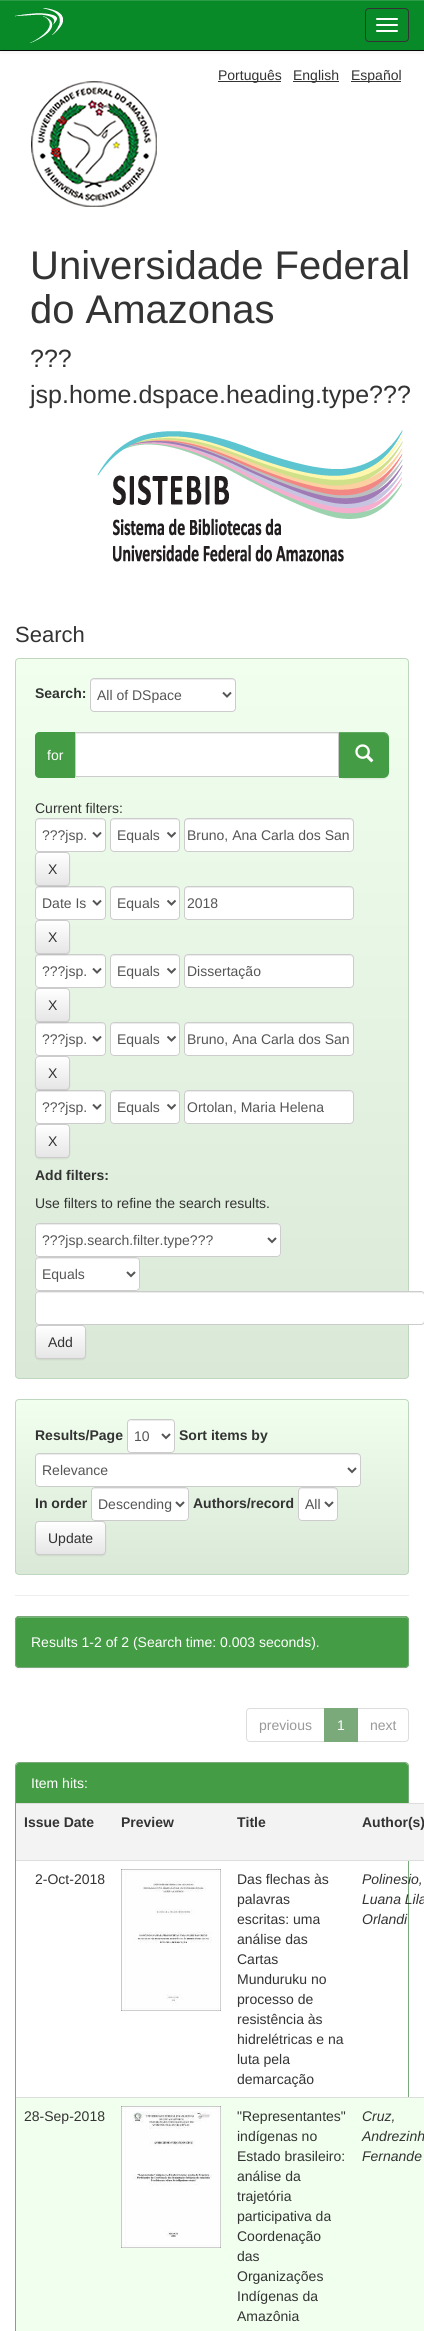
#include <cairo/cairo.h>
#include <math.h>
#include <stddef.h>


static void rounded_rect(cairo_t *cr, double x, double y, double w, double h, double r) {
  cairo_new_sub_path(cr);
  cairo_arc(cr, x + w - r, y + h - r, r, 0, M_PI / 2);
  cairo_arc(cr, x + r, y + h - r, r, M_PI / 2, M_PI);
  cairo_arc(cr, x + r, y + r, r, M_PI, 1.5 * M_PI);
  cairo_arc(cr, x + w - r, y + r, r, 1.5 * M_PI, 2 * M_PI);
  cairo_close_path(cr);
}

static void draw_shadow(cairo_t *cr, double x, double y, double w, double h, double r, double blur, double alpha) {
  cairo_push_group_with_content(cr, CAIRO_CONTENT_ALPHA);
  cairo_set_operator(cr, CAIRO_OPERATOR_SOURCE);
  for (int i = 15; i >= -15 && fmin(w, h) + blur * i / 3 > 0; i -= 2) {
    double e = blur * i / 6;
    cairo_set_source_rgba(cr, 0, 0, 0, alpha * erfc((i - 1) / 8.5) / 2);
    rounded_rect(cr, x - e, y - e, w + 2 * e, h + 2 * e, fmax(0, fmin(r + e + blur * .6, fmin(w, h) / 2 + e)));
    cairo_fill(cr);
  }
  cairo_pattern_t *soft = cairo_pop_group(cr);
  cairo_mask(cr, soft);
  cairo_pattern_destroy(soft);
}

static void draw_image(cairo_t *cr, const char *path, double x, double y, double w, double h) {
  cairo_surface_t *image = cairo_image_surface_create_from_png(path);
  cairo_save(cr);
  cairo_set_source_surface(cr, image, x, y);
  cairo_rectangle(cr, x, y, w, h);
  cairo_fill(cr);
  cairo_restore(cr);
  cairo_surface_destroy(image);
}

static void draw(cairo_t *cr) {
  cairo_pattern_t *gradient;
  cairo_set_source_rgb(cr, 1, 1, 1);
  cairo_paint(cr);
  cairo_set_source_rgb(cr, 0, 0, 0);
  draw_shadow(cr, 0, 1, 424, 51, 0, 2.5, 0.07);
  cairo_set_source_rgb(cr, 8 / 255.0, 138 / 255.0, 41 / 255.0);
  cairo_rectangle(cr, 0, 1, 424, 49);
  cairo_fill(cr);
  cairo_set_source_rgb(cr, 45 / 255.0, 156 / 255.0, 73 / 255.0);
  cairo_rectangle(cr, 0, 0, 424, 1);
  cairo_fill(cr);
  cairo_set_source_rgb(cr, 8 / 255.0, 8 / 255.0, 8 / 255.0);
  cairo_rectangle(cr, 0, 50, 424, 1);
  cairo_fill(cr);
  draw_image(cr, "images/1.png", 15, 8, 48, 35);
  rounded_rect(cr, 365.5, 8.5, 43, 33, 3.5);
  cairo_set_source_rgb(cr, 51 / 255.0, 51 / 255.0, 51 / 255.0);
  cairo_set_line_width(cr, 1);
  cairo_stroke(cr);
  cairo_set_source_rgb(cr, 1, 1, 1);
  rounded_rect(cr, 376, 18, 22, 2, 1);
  cairo_fill(cr);
  rounded_rect(cr, 376, 24, 22, 2, 1);
  cairo_fill(cr);
  rounded_rect(cr, 376, 30, 22, 2, 1);
  cairo_fill(cr);
  cairo_set_source_rgb(cr, 51 / 255.0, 51 / 255.0, 51 / 255.0);
  cairo_rectangle(cr, 218, 81, 63, 1);
  cairo_fill(cr);
  cairo_rectangle(cr, 293, 81, 46, 1);
  cairo_fill(cr);
  cairo_rectangle(cr, 351, 81, 50, 1);
  cairo_fill(cr);
  draw_image(cr, "images/2.png", 31, 81, 126, 126);
  draw_image(cr, "images/3.png", 97, 430, 306, 132);
  cairo_save(cr);
  rounded_rect(cr, 15, 658, 394, 721, 4);
  cairo_clip(cr);
  gradient = cairo_pattern_create_linear(212, 659, 212, 1378);
  cairo_pattern_add_color_stop_rgba(gradient, 0, 241 / 255.0, 1, 238 / 255.0, 1);
  cairo_pattern_add_color_stop_rgba(gradient, 1, 218 / 255.0, 232 / 255.0, 215 / 255.0, 1);
  cairo_set_source(cr, gradient);
  cairo_pattern_destroy(gradient);
  cairo_rectangle(cr, 15, 659, 394, 719);
  cairo_fill(cr);
  cairo_restore(cr);
  rounded_rect(cr, 15.5, 658.5, 393, 720, 3.5);
  cairo_set_source_rgb(cr, 190 / 255.0, 215 / 255.0, 190 / 255.0);
  cairo_stroke(cr);
  cairo_set_source_rgb(cr, 1, 1, 1);
  rounded_rect(cr, 90, 678, 146, 34, 4);
  cairo_fill(cr);
  cairo_set_source_rgb(cr, 236 / 255.0, 236 / 255.0, 236 / 255.0);
  cairo_new_path(cr);
  cairo_move_to(cr, 94, 680);
  cairo_line_to(cr, 232, 680);
  cairo_curve_to(cr, 234, 680, 235, 681, 235, 683);
  cairo_line_to(cr, 235, 682);
  cairo_curve_to(cr, 235, 680, 234, 679, 232, 679);
  cairo_line_to(cr, 94, 679);
  cairo_curve_to(cr, 92, 679, 91, 680, 91, 682);
  cairo_line_to(cr, 91, 683);
  cairo_curve_to(cr, 91, 681, 92, 680, 94, 680);
  cairo_close_path(cr);
  cairo_fill(cr);
  rounded_rect(cr, 90.5, 678.5, 145, 33, 3.5);
  cairo_set_source_rgb(cr, 204 / 255.0, 204 / 255.0, 204 / 255.0);
  cairo_stroke(cr);
  cairo_new_path(cr);
  cairo_move_to(cr, 223, 692.5);
  cairo_line_to(cr, 227, 696.5);
  cairo_line_to(cr, 231, 692.5);
  cairo_set_source_rgb(cr, 85 / 255.0, 85 / 255.0, 85 / 255.0);
  cairo_set_line_width(cr, 2);
  cairo_stroke(cr);
  cairo_set_source_rgb(cr, 68 / 255.0, 157 / 255.0, 68 / 255.0);
  cairo_new_path(cr);
  cairo_move_to(cr, 39, 732);
  cairo_line_to(cr, 75, 732);
  cairo_line_to(cr, 75, 778);
  cairo_line_to(cr, 39, 778);
  cairo_curve_to(cr, 37, 778, 35, 776, 35, 774);
  cairo_line_to(cr, 35, 736);
  cairo_curve_to(cr, 35, 734, 37, 732, 39, 732);
  cairo_close_path(cr);
  cairo_fill(cr);
  cairo_set_source_rgb(cr, 1, 1, 1);
  cairo_rectangle(cr, 76, 734, 262, 42);
  cairo_fill(cr);
  cairo_set_source_rgb(cr, 236 / 255.0, 236 / 255.0, 236 / 255.0);
  cairo_rectangle(cr, 76, 733, 262, 1);
  cairo_fill(cr);
  cairo_rectangle(cr, 75.5, 732.5, 263, 44);
  cairo_set_source_rgb(cr, 204 / 255.0, 204 / 255.0, 204 / 255.0);
  cairo_set_line_width(cr, 1);
  cairo_stroke(cr);
  cairo_set_source_rgb(cr, 0, 0, 0);
  draw_shadow(cr, 339, 733, 50, 46, 6, 0.5, 0.07);
  cairo_set_source_rgb(cr, 68 / 255.0, 157 / 255.0, 68 / 255.0);
  cairo_new_path(cr);
  cairo_move_to(cr, 339, 732);
  cairo_line_to(cr, 383, 732);
  cairo_curve_to(cr, 386.5, 732, 389, 734.5, 389, 738);
  cairo_line_to(cr, 389, 772);
  cairo_curve_to(cr, 389, 775.5, 386.5, 778, 383, 778);
  cairo_line_to(cr, 339, 778);
  cairo_close_path(cr);
  cairo_fill(cr);
  cairo_set_source_rgba(cr, 1, 1, 1, 0.15);
  cairo_new_path(cr);
  cairo_move_to(cr, 339, 733);
  cairo_line_to(cr, 383, 733);
  cairo_curve_to(cr, 386, 733, 389, 736, 389, 739);
  cairo_line_to(cr, 389, 738);
  cairo_curve_to(cr, 389, 735, 386, 732, 383, 732);
  cairo_line_to(cr, 339, 732);
  cairo_close_path(cr);
  cairo_fill(cr);
  draw_image(cr, "images/4.png", 355, 744, 19, 19);
  cairo_set_source_rgb(cr, 1, 1, 1);
  rounded_rect(cr, 35, 818, 71, 34, 4);
  cairo_fill(cr);
  cairo_set_source_rgb(cr, 236 / 255.0, 236 / 255.0, 236 / 255.0);
  cairo_new_path(cr);
  cairo_move_to(cr, 39, 820);
  cairo_line_to(cr, 102, 820);
  cairo_curve_to(cr, 104, 820, 105, 821, 105, 823);
  cairo_curve_to(cr, 105, 816, 96, 819, 92, 819);
  cairo_line_to(cr, 50, 819);
  cairo_curve_to(cr, 45, 819, 36, 816, 36, 823);
  cairo_curve_to(cr, 36, 821, 37, 820, 39, 820);
  cairo_close_path(cr);
  cairo_fill(cr);
  rounded_rect(cr, 35.5, 818.5, 70, 33, 3.5);
  cairo_set_source_rgb(cr, 204 / 255.0, 204 / 255.0, 204 / 255.0);
  cairo_stroke(cr);
  cairo_new_path(cr);
  cairo_move_to(cr, 93, 832.5);
  cairo_line_to(cr, 97, 836.5);
  cairo_line_to(cr, 101, 832.5);
  cairo_set_source_rgb(cr, 85 / 255.0, 85 / 255.0, 85 / 255.0);
  cairo_set_line_width(cr, 2);
  cairo_stroke(cr);
  cairo_set_source_rgb(cr, 1, 1, 1);
  rounded_rect(cr, 110, 818, 70, 34, 4);
  cairo_fill(cr);
  cairo_set_source_rgb(cr, 236 / 255.0, 236 / 255.0, 236 / 255.0);
  cairo_new_path(cr);
  cairo_move_to(cr, 114, 820);
  cairo_line_to(cr, 176, 820);
  cairo_curve_to(cr, 178, 820, 179, 821, 179, 823);
  cairo_curve_to(cr, 179, 816, 170, 819, 166, 819);
  cairo_line_to(cr, 124, 819);
  cairo_curve_to(cr, 120, 819, 111, 816, 111, 823);
  cairo_curve_to(cr, 111, 821, 112, 820, 114, 820);
  cairo_close_path(cr);
  cairo_fill(cr);
  rounded_rect(cr, 110.5, 818.5, 69, 33, 3.5);
  cairo_set_source_rgb(cr, 204 / 255.0, 204 / 255.0, 204 / 255.0);
  cairo_set_line_width(cr, 1);
  cairo_stroke(cr);
  cairo_new_path(cr);
  cairo_move_to(cr, 167.5, 832.5);
  cairo_line_to(cr, 171.5, 836.5);
  cairo_line_to(cr, 175.5, 832.5);
  cairo_set_source_rgb(cr, 85 / 255.0, 85 / 255.0, 85 / 255.0);
  cairo_set_line_width(cr, 2);
  cairo_stroke(cr);
  cairo_set_source_rgb(cr, 1, 1, 1);
  rounded_rect(cr, 184, 818, 170, 34, 4);
  cairo_fill(cr);
  cairo_set_source_rgb(cr, 236 / 255.0, 236 / 255.0, 236 / 255.0);
  cairo_new_path(cr);
  cairo_move_to(cr, 188, 820);
  cairo_line_to(cr, 350, 820);
  cairo_curve_to(cr, 352, 820, 353, 821, 353, 823);
  cairo_line_to(cr, 353, 822);
  cairo_curve_to(cr, 353, 820, 352, 819, 350, 819);
  cairo_line_to(cr, 188, 819);
  cairo_curve_to(cr, 186, 819, 185, 820, 185, 822);
  cairo_line_to(cr, 185, 823);
  cairo_curve_to(cr, 185, 821, 186, 820, 188, 820);
  cairo_close_path(cr);
  cairo_fill(cr);
  rounded_rect(cr, 184.5, 818.5, 169, 33, 3.5);
  cairo_set_source_rgb(cr, 204 / 255.0, 204 / 255.0, 204 / 255.0);
  cairo_set_line_width(cr, 1);
  cairo_stroke(cr);
  cairo_set_source_rgb(cr, 1, 1, 1);
  rounded_rect(cr, 35, 886, 71, 34, 4);
  cairo_fill(cr);
  cairo_set_source_rgb(cr, 236 / 255.0, 236 / 255.0, 236 / 255.0);
  cairo_new_path(cr);
  cairo_move_to(cr, 39, 888);
  cairo_line_to(cr, 102, 888);
  cairo_curve_to(cr, 104, 888, 105, 889, 105, 891);
  cairo_curve_to(cr, 105, 884, 96, 887, 92, 887);
  cairo_line_to(cr, 50, 887);
  cairo_curve_to(cr, 45, 887, 36, 884, 36, 891);
  cairo_curve_to(cr, 36, 889, 37, 888, 39, 888);
  cairo_close_path(cr);
  cairo_fill(cr);
  rounded_rect(cr, 35.5, 886.5, 70, 33, 3.5);
  cairo_set_source_rgb(cr, 204 / 255.0, 204 / 255.0, 204 / 255.0);
  cairo_stroke(cr);
  cairo_set_source_rgb(cr, 0, 0, 0);
  draw_shadow(cr, 35, 853, 35, 34, 4, 0.5, 0.07);
  cairo_save(cr);
  rounded_rect(cr, 35, 852, 35, 34, 4);
  cairo_clip(cr);
  gradient = cairo_pattern_create_linear(53, 853, 53, 885);
  cairo_pattern_add_color_stop_rgba(gradient, 0, 1, 1, 1, 1);
  cairo_pattern_add_color_stop_rgba(gradient, 1, 230 / 255.0, 230 / 255.0, 230 / 255.0, 1);
  cairo_set_source(cr, gradient);
  cairo_pattern_destroy(gradient);
  cairo_rectangle(cr, 35, 853, 35, 32);
  cairo_fill(cr);
  cairo_restore(cr);
  rounded_rect(cr, 35.5, 852.5, 34, 33, 3.5);
  cairo_set_source_rgb(cr, 204 / 255.0, 204 / 255.0, 204 / 255.0);
  cairo_stroke(cr);
  cairo_new_path(cr);
  cairo_move_to(cr, 93, 900.5);
  cairo_line_to(cr, 97, 904.5);
  cairo_line_to(cr, 101, 900.5);
  cairo_set_source_rgb(cr, 85 / 255.0, 85 / 255.0, 85 / 255.0);
  cairo_set_line_width(cr, 2);
  cairo_stroke(cr);
  cairo_set_source_rgb(cr, 1, 1, 1);
  rounded_rect(cr, 110, 886, 70, 34, 4);
  cairo_fill(cr);
  cairo_set_source_rgb(cr, 236 / 255.0, 236 / 255.0, 236 / 255.0);
  cairo_new_path(cr);
  cairo_move_to(cr, 114, 888);
  cairo_line_to(cr, 176, 888);
  cairo_curve_to(cr, 178, 888, 179, 889, 179, 891);
  cairo_curve_to(cr, 179, 884, 170, 887, 166, 887);
  cairo_line_to(cr, 124, 887);
  cairo_curve_to(cr, 120, 887, 111, 884, 111, 891);
  cairo_curve_to(cr, 111, 889, 112, 888, 114, 888);
  cairo_close_path(cr);
  cairo_fill(cr);
  rounded_rect(cr, 110.5, 886.5, 69, 33, 3.5);
  cairo_set_source_rgb(cr, 204 / 255.0, 204 / 255.0, 204 / 255.0);
  cairo_set_line_width(cr, 1);
  cairo_stroke(cr);
  cairo_new_path(cr);
  cairo_move_to(cr, 167.5, 900.5);
  cairo_line_to(cr, 171.5, 904.5);
  cairo_line_to(cr, 175.5, 900.5);
  cairo_set_source_rgb(cr, 85 / 255.0, 85 / 255.0, 85 / 255.0);
  cairo_set_line_width(cr, 2);
  cairo_stroke(cr);
  cairo_set_source_rgb(cr, 1, 1, 1);
  rounded_rect(cr, 184, 886, 170, 34, 4);
  cairo_fill(cr);
  cairo_set_source_rgb(cr, 236 / 255.0, 236 / 255.0, 236 / 255.0);
  cairo_new_path(cr);
  cairo_move_to(cr, 188, 888);
  cairo_line_to(cr, 350, 888);
  cairo_curve_to(cr, 352, 888, 353, 889, 353, 891);
  cairo_line_to(cr, 353, 890);
  cairo_curve_to(cr, 353, 888, 352, 887, 350, 887);
  cairo_line_to(cr, 188, 887);
  cairo_curve_to(cr, 186, 887, 185, 888, 185, 890);
  cairo_line_to(cr, 185, 891);
  cairo_curve_to(cr, 185, 889, 186, 888, 188, 888);
  cairo_close_path(cr);
  cairo_fill(cr);
  rounded_rect(cr, 184.5, 886.5, 169, 33, 3.5);
  cairo_set_source_rgb(cr, 204 / 255.0, 204 / 255.0, 204 / 255.0);
  cairo_set_line_width(cr, 1);
  cairo_stroke(cr);
  cairo_set_source_rgb(cr, 1, 1, 1);
  rounded_rect(cr, 35, 954, 71, 34, 4);
  cairo_fill(cr);
  cairo_set_source_rgb(cr, 236 / 255.0, 236 / 255.0, 236 / 255.0);
  cairo_new_path(cr);
  cairo_move_to(cr, 39, 956);
  cairo_line_to(cr, 102, 956);
  cairo_curve_to(cr, 104, 956, 105, 957, 105, 959);
  cairo_curve_to(cr, 105, 952, 96, 955, 92, 955);
  cairo_line_to(cr, 50, 955);
  cairo_curve_to(cr, 45, 955, 36, 952, 36, 959);
  cairo_curve_to(cr, 36, 957, 37, 956, 39, 956);
  cairo_close_path(cr);
  cairo_fill(cr);
  rounded_rect(cr, 35.5, 954.5, 70, 33, 3.5);
  cairo_set_source_rgb(cr, 204 / 255.0, 204 / 255.0, 204 / 255.0);
  cairo_stroke(cr);
  cairo_set_source_rgb(cr, 0, 0, 0);
  draw_shadow(cr, 35, 921, 35, 34, 4, 0.5, 0.07);
  cairo_save(cr);
  rounded_rect(cr, 35, 920, 35, 34, 4);
  cairo_clip(cr);
  gradient = cairo_pattern_create_linear(53, 921, 53, 953);
  cairo_pattern_add_color_stop_rgba(gradient, 0, 1, 1, 1, 1);
  cairo_pattern_add_color_stop_rgba(gradient, 1, 230 / 255.0, 230 / 255.0, 230 / 255.0, 1);
  cairo_set_source(cr, gradient);
  cairo_pattern_destroy(gradient);
  cairo_rectangle(cr, 35, 921, 35, 32);
  cairo_fill(cr);
  cairo_restore(cr);
  rounded_rect(cr, 35.5, 920.5, 34, 33, 3.5);
  cairo_set_source_rgb(cr, 204 / 255.0, 204 / 255.0, 204 / 255.0);
  cairo_stroke(cr);
  cairo_new_path(cr);
  cairo_move_to(cr, 93, 968.5);
  cairo_line_to(cr, 97, 972.5);
  cairo_line_to(cr, 101, 968.5);
  cairo_set_source_rgb(cr, 85 / 255.0, 85 / 255.0, 85 / 255.0);
  cairo_set_line_width(cr, 2);
  cairo_stroke(cr);
  cairo_set_source_rgb(cr, 1, 1, 1);
  rounded_rect(cr, 110, 954, 70, 34, 4);
  cairo_fill(cr);
  cairo_set_source_rgb(cr, 236 / 255.0, 236 / 255.0, 236 / 255.0);
  cairo_new_path(cr);
  cairo_move_to(cr, 114, 956);
  cairo_line_to(cr, 176, 956);
  cairo_curve_to(cr, 178, 956, 179, 957, 179, 959);
  cairo_curve_to(cr, 179, 952, 170, 955, 166, 955);
  cairo_line_to(cr, 124, 955);
  cairo_curve_to(cr, 120, 955, 111, 952, 111, 959);
  cairo_curve_to(cr, 111, 957, 112, 956, 114, 956);
  cairo_close_path(cr);
  cairo_fill(cr);
  rounded_rect(cr, 110.5, 954.5, 69, 33, 3.5);
  cairo_set_source_rgb(cr, 204 / 255.0, 204 / 255.0, 204 / 255.0);
  cairo_set_line_width(cr, 1);
  cairo_stroke(cr);
  cairo_new_path(cr);
  cairo_move_to(cr, 167.5, 968.5);
  cairo_line_to(cr, 171.5, 972.5);
  cairo_line_to(cr, 175.5, 968.5);
  cairo_set_source_rgb(cr, 85 / 255.0, 85 / 255.0, 85 / 255.0);
  cairo_set_line_width(cr, 2);
  cairo_stroke(cr);
  cairo_set_source_rgb(cr, 1, 1, 1);
  rounded_rect(cr, 184, 954, 170, 34, 4);
  cairo_fill(cr);
  cairo_set_source_rgb(cr, 236 / 255.0, 236 / 255.0, 236 / 255.0);
  cairo_new_path(cr);
  cairo_move_to(cr, 188, 956);
  cairo_line_to(cr, 350, 956);
  cairo_curve_to(cr, 352, 956, 353, 957, 353, 959);
  cairo_line_to(cr, 353, 958);
  cairo_curve_to(cr, 353, 956, 352, 955, 350, 955);
  cairo_line_to(cr, 188, 955);
  cairo_curve_to(cr, 186, 955, 185, 956, 185, 958);
  cairo_line_to(cr, 185, 959);
  cairo_curve_to(cr, 185, 957, 186, 956, 188, 956);
  cairo_close_path(cr);
  cairo_fill(cr);
  rounded_rect(cr, 184.5, 954.5, 169, 33, 3.5);
  cairo_set_source_rgb(cr, 204 / 255.0, 204 / 255.0, 204 / 255.0);
  cairo_set_line_width(cr, 1);
  cairo_stroke(cr);
  cairo_set_source_rgb(cr, 1, 1, 1);
  rounded_rect(cr, 35, 1022, 71, 34, 4);
  cairo_fill(cr);
  cairo_set_source_rgb(cr, 236 / 255.0, 236 / 255.0, 236 / 255.0);
  cairo_new_path(cr);
  cairo_move_to(cr, 39, 1024);
  cairo_line_to(cr, 102, 1024);
  cairo_curve_to(cr, 104, 1024, 105, 1025, 105, 1027);
  cairo_curve_to(cr, 105, 1020, 96, 1023, 92, 1023);
  cairo_line_to(cr, 50, 1023);
  cairo_curve_to(cr, 45, 1023, 36, 1020, 36, 1027);
  cairo_curve_to(cr, 36, 1025, 37, 1024, 39, 1024);
  cairo_close_path(cr);
  cairo_fill(cr);
  rounded_rect(cr, 35.5, 1022.5, 70, 33, 3.5);
  cairo_set_source_rgb(cr, 204 / 255.0, 204 / 255.0, 204 / 255.0);
  cairo_stroke(cr);
  cairo_set_source_rgb(cr, 0, 0, 0);
  draw_shadow(cr, 35, 989, 35, 34, 4, 0.5, 0.07);
  cairo_save(cr);
  rounded_rect(cr, 35, 988, 35, 34, 4);
  cairo_clip(cr);
  gradient = cairo_pattern_create_linear(53, 989, 53, 1021);
  cairo_pattern_add_color_stop_rgba(gradient, 0, 1, 1, 1, 1);
  cairo_pattern_add_color_stop_rgba(gradient, 1, 230 / 255.0, 230 / 255.0, 230 / 255.0, 1);
  cairo_set_source(cr, gradient);
  cairo_pattern_destroy(gradient);
  cairo_rectangle(cr, 35, 989, 35, 32);
  cairo_fill(cr);
  cairo_restore(cr);
  rounded_rect(cr, 35.5, 988.5, 34, 33, 3.5);
  cairo_set_source_rgb(cr, 204 / 255.0, 204 / 255.0, 204 / 255.0);
  cairo_stroke(cr);
  cairo_new_path(cr);
  cairo_move_to(cr, 93, 1036.5);
  cairo_line_to(cr, 97, 1040.5);
  cairo_line_to(cr, 101, 1036.5);
  cairo_set_source_rgb(cr, 85 / 255.0, 85 / 255.0, 85 / 255.0);
  cairo_set_line_width(cr, 2);
  cairo_stroke(cr);
  cairo_set_source_rgb(cr, 1, 1, 1);
  rounded_rect(cr, 110, 1022, 70, 34, 4);
  cairo_fill(cr);
  cairo_set_source_rgb(cr, 236 / 255.0, 236 / 255.0, 236 / 255.0);
  cairo_new_path(cr);
  cairo_move_to(cr, 114, 1024);
  cairo_line_to(cr, 176, 1024);
  cairo_curve_to(cr, 178, 1024, 179, 1025, 179, 1027);
  cairo_curve_to(cr, 179, 1020, 170, 1023, 166, 1023);
  cairo_line_to(cr, 124, 1023);
  cairo_curve_to(cr, 120, 1023, 111, 1020, 111, 1027);
  cairo_curve_to(cr, 111, 1025, 112, 1024, 114, 1024);
  cairo_close_path(cr);
  cairo_fill(cr);
  rounded_rect(cr, 110.5, 1022.5, 69, 33, 3.5);
  cairo_set_source_rgb(cr, 204 / 255.0, 204 / 255.0, 204 / 255.0);
  cairo_set_line_width(cr, 1);
  cairo_stroke(cr);
  cairo_new_path(cr);
  cairo_move_to(cr, 167.5, 1036.5);
  cairo_line_to(cr, 171.5, 1040.5);
  cairo_line_to(cr, 175.5, 1036.5);
  cairo_set_source_rgb(cr, 85 / 255.0, 85 / 255.0, 85 / 255.0);
  cairo_set_line_width(cr, 2);
  cairo_stroke(cr);
  cairo_set_source_rgb(cr, 1, 1, 1);
  rounded_rect(cr, 184, 1022, 170, 34, 4);
  cairo_fill(cr);
  cairo_set_source_rgb(cr, 236 / 255.0, 236 / 255.0, 236 / 255.0);
  cairo_new_path(cr);
  cairo_move_to(cr, 188, 1024);
  cairo_line_to(cr, 350, 1024);
  cairo_curve_to(cr, 352, 1024, 353, 1025, 353, 1027);
  cairo_line_to(cr, 353, 1026);
  cairo_curve_to(cr, 353, 1024, 352, 1023, 350, 1023);
  cairo_line_to(cr, 188, 1023);
  cairo_curve_to(cr, 186, 1023, 185, 1024, 185, 1026);
  cairo_line_to(cr, 185, 1027);
  cairo_curve_to(cr, 185, 1025, 186, 1024, 188, 1024);
  cairo_close_path(cr);
  cairo_fill(cr);
  rounded_rect(cr, 184.5, 1022.5, 169, 33, 3.5);
  cairo_set_source_rgb(cr, 204 / 255.0, 204 / 255.0, 204 / 255.0);
  cairo_set_line_width(cr, 1);
  cairo_stroke(cr);
  cairo_set_source_rgb(cr, 1, 1, 1);
  rounded_rect(cr, 35, 1090, 71, 34, 4);
  cairo_fill(cr);
  cairo_set_source_rgb(cr, 236 / 255.0, 236 / 255.0, 236 / 255.0);
  cairo_new_path(cr);
  cairo_move_to(cr, 39, 1092);
  cairo_line_to(cr, 102, 1092);
  cairo_curve_to(cr, 104, 1092, 105, 1093, 105, 1095);
  cairo_curve_to(cr, 105, 1088, 96, 1091, 92, 1091);
  cairo_line_to(cr, 50, 1091);
  cairo_curve_to(cr, 45, 1091, 36, 1088, 36, 1095);
  cairo_curve_to(cr, 36, 1093, 37, 1092, 39, 1092);
  cairo_close_path(cr);
  cairo_fill(cr);
  rounded_rect(cr, 35.5, 1090.5, 70, 33, 3.5);
  cairo_set_source_rgb(cr, 204 / 255.0, 204 / 255.0, 204 / 255.0);
  cairo_stroke(cr);
  cairo_set_source_rgb(cr, 0, 0, 0);
  draw_shadow(cr, 35, 1057, 35, 34, 4, 0.5, 0.07);
  cairo_save(cr);
  rounded_rect(cr, 35, 1056, 35, 34, 4);
  cairo_clip(cr);
  gradient = cairo_pattern_create_linear(53, 1057, 53, 1089);
  cairo_pattern_add_color_stop_rgba(gradient, 0, 1, 1, 1, 1);
  cairo_pattern_add_color_stop_rgba(gradient, 1, 230 / 255.0, 230 / 255.0, 230 / 255.0, 1);
  cairo_set_source(cr, gradient);
  cairo_pattern_destroy(gradient);
  cairo_rectangle(cr, 35, 1057, 35, 32);
  cairo_fill(cr);
  cairo_restore(cr);
  rounded_rect(cr, 35.5, 1056.5, 34, 33, 3.5);
  cairo_set_source_rgb(cr, 204 / 255.0, 204 / 255.0, 204 / 255.0);
  cairo_stroke(cr);
  cairo_new_path(cr);
  cairo_move_to(cr, 93, 1104.5);
  cairo_line_to(cr, 97, 1108.5);
  cairo_line_to(cr, 101, 1104.5);
  cairo_set_source_rgb(cr, 85 / 255.0, 85 / 255.0, 85 / 255.0);
  cairo_set_line_width(cr, 2);
  cairo_stroke(cr);
  cairo_set_source_rgb(cr, 1, 1, 1);
  rounded_rect(cr, 110, 1090, 70, 34, 4);
  cairo_fill(cr);
  cairo_set_source_rgb(cr, 236 / 255.0, 236 / 255.0, 236 / 255.0);
  cairo_new_path(cr);
  cairo_move_to(cr, 114, 1092);
  cairo_line_to(cr, 176, 1092);
  cairo_curve_to(cr, 178, 1092, 179, 1093, 179, 1095);
  cairo_curve_to(cr, 179, 1088, 170, 1091, 166, 1091);
  cairo_line_to(cr, 124, 1091);
  cairo_curve_to(cr, 120, 1091, 111, 1088, 111, 1095);
  cairo_curve_to(cr, 111, 1093, 112, 1092, 114, 1092);
  cairo_close_path(cr);
  cairo_fill(cr);
  rounded_rect(cr, 110.5, 1090.5, 69, 33, 3.5);
  cairo_set_source_rgb(cr, 204 / 255.0, 204 / 255.0, 204 / 255.0);
  cairo_set_line_width(cr, 1);
  cairo_stroke(cr);
  cairo_new_path(cr);
  cairo_move_to(cr, 167.5, 1104.5);
  cairo_line_to(cr, 171.5, 1108.5);
  cairo_line_to(cr, 175.5, 1104.5);
  cairo_set_source_rgb(cr, 85 / 255.0, 85 / 255.0, 85 / 255.0);
  cairo_set_line_width(cr, 2);
  cairo_stroke(cr);
  cairo_set_source_rgb(cr, 1, 1, 1);
  rounded_rect(cr, 184, 1090, 170, 34, 4);
  cairo_fill(cr);
  cairo_set_source_rgb(cr, 236 / 255.0, 236 / 255.0, 236 / 255.0);
  cairo_new_path(cr);
  cairo_move_to(cr, 188, 1092);
  cairo_line_to(cr, 350, 1092);
  cairo_curve_to(cr, 352, 1092, 353, 1093, 353, 1095);
  cairo_line_to(cr, 353, 1094);
  cairo_curve_to(cr, 353, 1092, 352, 1091, 350, 1091);
  cairo_line_to(cr, 188, 1091);
  cairo_curve_to(cr, 186, 1091, 185, 1092, 185, 1094);
  cairo_line_to(cr, 185, 1095);
  cairo_curve_to(cr, 185, 1093, 186, 1092, 188, 1092);
  cairo_close_path(cr);
  cairo_fill(cr);
  rounded_rect(cr, 184.5, 1090.5, 169, 33, 3.5);
  cairo_set_source_rgb(cr, 204 / 255.0, 204 / 255.0, 204 / 255.0);
  cairo_set_line_width(cr, 1);
  cairo_stroke(cr);
  cairo_set_source_rgb(cr, 0, 0, 0);
  draw_shadow(cr, 35, 1125, 35, 34, 4, 0.5, 0.07);
  cairo_save(cr);
  rounded_rect(cr, 35, 1124, 35, 34, 4);
  cairo_clip(cr);
  gradient = cairo_pattern_create_linear(53, 1125, 53, 1157);
  cairo_pattern_add_color_stop_rgba(gradient, 0, 1, 1, 1, 1);
  cairo_pattern_add_color_stop_rgba(gradient, 1, 230 / 255.0, 230 / 255.0, 230 / 255.0, 1);
  cairo_set_source(cr, gradient);
  cairo_pattern_destroy(gradient);
  cairo_rectangle(cr, 35, 1125, 35, 32);
  cairo_fill(cr);
  cairo_restore(cr);
  rounded_rect(cr, 35.5, 1124.5, 34, 33, 3.5);
  cairo_set_source_rgb(cr, 204 / 255.0, 204 / 255.0, 204 / 255.0);
  cairo_stroke(cr);
  cairo_set_source_rgb(cr, 1, 1, 1);
  rounded_rect(cr, 35, 1223, 246, 34, 4);
  cairo_fill(cr);
  cairo_set_source_rgb(cr, 236 / 255.0, 236 / 255.0, 236 / 255.0);
  cairo_new_path(cr);
  cairo_move_to(cr, 39, 1225);
  cairo_line_to(cr, 278, 1225);
  cairo_line_to(cr, 280, 1226);
  cairo_line_to(cr, 280, 1228);
  cairo_curve_to(cr, 280, 1226, 279, 1224, 277, 1224);
  cairo_line_to(cr, 39, 1224);
  cairo_curve_to(cr, 37, 1224, 36, 1226, 36, 1228);
  cairo_curve_to(cr, 36, 1226, 37, 1225, 39, 1225);
  cairo_close_path(cr);
  cairo_fill(cr);
  rounded_rect(cr, 35.5, 1223.5, 245, 33, 3.5);
  cairo_set_source_rgb(cr, 204 / 255.0, 204 / 255.0, 204 / 255.0);
  cairo_stroke(cr);
  cairo_new_path(cr);
  cairo_move_to(cr, 268, 1238);
  cairo_line_to(cr, 272, 1242);
  cairo_line_to(cr, 276, 1238);
  cairo_set_source_rgb(cr, 85 / 255.0, 85 / 255.0, 85 / 255.0);
  cairo_set_line_width(cr, 2);
  cairo_stroke(cr);
  cairo_set_source_rgb(cr, 1, 1, 1);
  rounded_rect(cr, 35, 1257, 105, 34, 4);
  cairo_fill(cr);
  cairo_set_source_rgb(cr, 236 / 255.0, 236 / 255.0, 236 / 255.0);
  cairo_new_path(cr);
  cairo_move_to(cr, 39, 1259);
  cairo_line_to(cr, 136, 1259);
  cairo_curve_to(cr, 138, 1259, 139, 1260, 139, 1262);
  cairo_curve_to(cr, 139, 1254, 123, 1258, 120, 1258);
  cairo_line_to(cr, 55, 1258);
  cairo_curve_to(cr, 52, 1258, 36, 1254, 36, 1262);
  cairo_curve_to(cr, 36, 1260, 37, 1259, 39, 1259);
  cairo_close_path(cr);
  cairo_fill(cr);
  rounded_rect(cr, 35.5, 1257.5, 104, 33, 3.5);
  cairo_set_source_rgb(cr, 204 / 255.0, 204 / 255.0, 204 / 255.0);
  cairo_set_line_width(cr, 1);
  cairo_stroke(cr);
  cairo_new_path(cr);
  cairo_move_to(cr, 127, 1272);
  cairo_line_to(cr, 131, 1276);
  cairo_line_to(cr, 135, 1272);
  cairo_set_source_rgb(cr, 85 / 255.0, 85 / 255.0, 85 / 255.0);
  cairo_set_line_width(cr, 2);
  cairo_stroke(cr);
  cairo_set_source_rgb(cr, 1, 1, 1);
  rounded_rect(cr, 35, 1291, 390, 34, 4);
  cairo_fill(cr);
  cairo_set_source_rgb(cr, 236 / 255.0, 236 / 255.0, 236 / 255.0);
  cairo_new_path(cr);
  cairo_move_to(cr, 39, 1293);
  cairo_line_to(cr, 421, 1293);
  cairo_curve_to(cr, 423, 1293, 424, 1294, 424, 1296);
  cairo_curve_to(cr, 424, 1294, 423, 1292, 421, 1292);
  cairo_line_to(cr, 39, 1292);
  cairo_line_to(cr, 37, 1293);
  cairo_line_to(cr, 36, 1296);
  cairo_curve_to(cr, 36, 1294, 37, 1293, 39, 1293);
  cairo_close_path(cr);
  cairo_fill(cr);
  rounded_rect(cr, 35.5, 1291.5, 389, 33, 3.5);
  cairo_set_source_rgb(cr, 204 / 255.0, 204 / 255.0, 204 / 255.0);
  cairo_set_line_width(cr, 1);
  cairo_stroke(cr);
  cairo_set_source_rgb(cr, 0, 0, 0);
  draw_shadow(cr, 35, 1326, 51, 34, 4, 0.5, 0.07);
  cairo_save(cr);
  rounded_rect(cr, 35, 1325, 51, 34, 4);
  cairo_clip(cr);
  gradient = cairo_pattern_create_linear(61, 1326, 61, 1358);
  cairo_pattern_add_color_stop_rgba(gradient, 0, 1, 1, 1, 1);
  cairo_pattern_add_color_stop_rgba(gradient, 1, 230 / 255.0, 230 / 255.0, 230 / 255.0, 1);
  cairo_set_source(cr, gradient);
  cairo_pattern_destroy(gradient);
  cairo_rectangle(cr, 35, 1326, 51, 32);
  cairo_fill(cr);
  cairo_restore(cr);
  rounded_rect(cr, 35.5, 1325.5, 50, 33, 3.5);
  cairo_set_source_rgb(cr, 204 / 255.0, 204 / 255.0, 204 / 255.0);
  cairo_stroke(cr);
  cairo_save(cr);
  rounded_rect(cr, 15, 1399, 394, 176, 4);
  cairo_clip(cr);
  gradient = cairo_pattern_create_linear(212, 1400, 212, 1574);
  cairo_pattern_add_color_stop_rgba(gradient, 0, 241 / 255.0, 1, 238 / 255.0, 1);
  cairo_pattern_add_color_stop_rgba(gradient, 1, 218 / 255.0, 232 / 255.0, 215 / 255.0, 1);
  cairo_set_source(cr, gradient);
  cairo_pattern_destroy(gradient);
  cairo_rectangle(cr, 15, 1400, 394, 174);
  cairo_fill(cr);
  cairo_restore(cr);
  rounded_rect(cr, 15.5, 1399.5, 393, 175, 3.5);
  cairo_set_source_rgb(cr, 190 / 255.0, 215 / 255.0, 190 / 255.0);
  cairo_stroke(cr);
  cairo_set_source_rgb(cr, 1, 1, 1);
  rounded_rect(cr, 127, 1419, 48, 34, 4);
  cairo_fill(cr);
  cairo_set_source_rgb(cr, 236 / 255.0, 236 / 255.0, 236 / 255.0);
  cairo_new_path(cr);
  cairo_move_to(cr, 131, 1421);
  cairo_line_to(cr, 171, 1421);
  cairo_curve_to(cr, 173, 1421, 174, 1422, 174, 1424);
  cairo_curve_to(cr, 174, 1419, 169, 1420, 164, 1420);
  cairo_line_to(cr, 138, 1420);
  cairo_curve_to(cr, 133, 1420, 128, 1419, 128, 1424);
  cairo_curve_to(cr, 128, 1422, 129, 1421, 131, 1421);
  cairo_close_path(cr);
  cairo_fill(cr);
  rounded_rect(cr, 127.5, 1419.5, 47, 33, 3.5);
  cairo_set_source_rgb(cr, 204 / 255.0, 204 / 255.0, 204 / 255.0);
  cairo_stroke(cr);
  cairo_new_path(cr);
  cairo_move_to(cr, 162, 1434);
  cairo_line_to(cr, 166, 1438);
  cairo_line_to(cr, 170, 1434);
  cairo_set_source_rgb(cr, 85 / 255.0, 85 / 255.0, 85 / 255.0);
  cairo_set_line_width(cr, 2);
  cairo_stroke(cr);
  cairo_set_source_rgb(cr, 1, 1, 1);
  rounded_rect(cr, 35, 1453, 326, 34, 4);
  cairo_fill(cr);
  cairo_set_source_rgb(cr, 236 / 255.0, 236 / 255.0, 236 / 255.0);
  cairo_new_path(cr);
  cairo_move_to(cr, 39, 1455);
  cairo_line_to(cr, 357, 1455);
  cairo_curve_to(cr, 359, 1455, 360, 1456, 360, 1458);
  cairo_curve_to(cr, 360, 1456, 359, 1454, 357, 1454);
  cairo_line_to(cr, 39, 1454);
  cairo_curve_to(cr, 37, 1454, 36, 1456, 36, 1458);
  cairo_curve_to(cr, 36, 1456, 37, 1455, 39, 1455);
  cairo_close_path(cr);
  cairo_fill(cr);
  rounded_rect(cr, 35.5, 1453.5, 325, 33, 3.5);
  cairo_set_source_rgb(cr, 204 / 255.0, 204 / 255.0, 204 / 255.0);
  cairo_set_line_width(cr, 1);
  cairo_stroke(cr);
  cairo_new_path(cr);
  cairo_move_to(cr, 348, 1468);
  cairo_line_to(cr, 352, 1472);
  cairo_line_to(cr, 356, 1468);
  cairo_set_source_rgb(cr, 85 / 255.0, 85 / 255.0, 85 / 255.0);
  cairo_set_line_width(cr, 2);
  cairo_stroke(cr);
  cairo_set_source_rgb(cr, 1, 1, 1);
  rounded_rect(cr, 91, 1487, 98, 34, 4);
  cairo_fill(cr);
  cairo_set_source_rgb(cr, 236 / 255.0, 236 / 255.0, 236 / 255.0);
  cairo_new_path(cr);
  cairo_move_to(cr, 95, 1489);
  cairo_line_to(cr, 185, 1489);
  cairo_curve_to(cr, 187, 1489, 188, 1490, 188, 1492);
  cairo_curve_to(cr, 188, 1484, 173, 1488, 170, 1488);
  cairo_line_to(cr, 110, 1488);
  cairo_curve_to(cr, 107, 1488, 92, 1484, 92, 1492);
  cairo_curve_to(cr, 92, 1490, 93, 1489, 95, 1489);
  cairo_close_path(cr);
  cairo_fill(cr);
  rounded_rect(cr, 91.5, 1487.5, 97, 33, 3.5);
  cairo_set_source_rgb(cr, 204 / 255.0, 204 / 255.0, 204 / 255.0);
  cairo_set_line_width(cr, 1);
  cairo_stroke(cr);
  cairo_new_path(cr);
  cairo_move_to(cr, 176, 1502);
  cairo_line_to(cr, 180, 1506);
  cairo_line_to(cr, 184, 1502);
  cairo_set_source_rgb(cr, 85 / 255.0, 85 / 255.0, 85 / 255.0);
  cairo_set_line_width(cr, 2);
  cairo_stroke(cr);
  cairo_set_source_rgb(cr, 1, 1, 1);
  rounded_rect(cr, 298, 1487, 40, 34, 4);
  cairo_fill(cr);
  cairo_set_source_rgb(cr, 236 / 255.0, 236 / 255.0, 236 / 255.0);
  cairo_new_path(cr);
  cairo_move_to(cr, 302, 1489);
  cairo_line_to(cr, 329, 1489);
  cairo_curve_to(cr, 334.5, 1489, 336.5, 1489.5, 337, 1491.5);
  cairo_curve_to(cr, 337, 1486.5, 332.5, 1488, 328.5, 1488);
  cairo_line_to(cr, 307.5, 1488);
  cairo_curve_to(cr, 304, 1488, 299, 1487, 299, 1491.5);
  cairo_curve_to(cr, 299.5, 1490, 300.5, 1489, 302, 1489);
  cairo_close_path(cr);
  cairo_fill(cr);
  rounded_rect(cr, 298.5, 1487.5, 39, 33, 3.5);
  cairo_set_source_rgb(cr, 204 / 255.0, 204 / 255.0, 204 / 255.0);
  cairo_set_line_width(cr, 1);
  cairo_stroke(cr);
  cairo_new_path(cr);
  cairo_move_to(cr, 325, 1502);
  cairo_line_to(cr, 329, 1506);
  cairo_line_to(cr, 333, 1502);
  cairo_set_source_rgb(cr, 85 / 255.0, 85 / 255.0, 85 / 255.0);
  cairo_set_line_width(cr, 2);
  cairo_stroke(cr);
  cairo_set_source_rgb(cr, 0, 0, 0);
  draw_shadow(cr, 35, 1522, 71, 34, 4, 0.5, 0.07);
  cairo_save(cr);
  rounded_rect(cr, 35, 1521, 71, 34, 4);
  cairo_clip(cr);
  gradient = cairo_pattern_create_linear(71, 1522, 71, 1554);
  cairo_pattern_add_color_stop_rgba(gradient, 0, 1, 1, 1, 1);
  cairo_pattern_add_color_stop_rgba(gradient, 1, 230 / 255.0, 230 / 255.0, 230 / 255.0, 1);
  cairo_set_source(cr, gradient);
  cairo_pattern_destroy(gradient);
  cairo_rectangle(cr, 35, 1522, 71, 32);
  cairo_fill(cr);
  cairo_restore(cr);
  rounded_rect(cr, 35.5, 1521.5, 70, 33, 3.5);
  cairo_set_source_rgb(cr, 204 / 255.0, 204 / 255.0, 204 / 255.0);
  cairo_set_line_width(cr, 1);
  cairo_stroke(cr);
  cairo_set_source_rgb(cr, 238 / 255.0, 238 / 255.0, 238 / 255.0);
  cairo_rectangle(cr, 15, 1595, 394, 1);
  cairo_fill(cr);
  cairo_set_source_rgb(cr, 0, 0, 0);
  draw_shadow(cr, 15, 1617, 394, 52, 4, 1, 0.05);
  cairo_set_source_rgb(cr, 68 / 255.0, 157 / 255.0, 68 / 255.0);
  rounded_rect(cr, 15, 1616, 394, 52, 4);
  cairo_fill(cr);
  cairo_set_source_rgb(cr, 115 / 255.0, 182 / 255.0, 115 / 255.0);
  cairo_new_path(cr);
  cairo_move_to(cr, 19, 1618);
  cairo_line_to(cr, 405, 1618);
  cairo_curve_to(cr, 407, 1618, 408, 1619, 408, 1621);
  cairo_curve_to(cr, 408, 1619, 407, 1617, 405, 1617);
  cairo_line_to(cr, 19, 1617);
  cairo_line_to(cr, 17, 1618);
  cairo_line_to(cr, 16, 1621);
  cairo_curve_to(cr, 16, 1619, 17, 1618, 19, 1618);
  cairo_close_path(cr);
  cairo_fill(cr);
  rounded_rect(cr, 15.5, 1616.5, 393, 51, 3.5);
  cairo_set_source_rgb(cr, 122 / 255.0, 169 / 255.0, 122 / 255.0);
  cairo_stroke(cr);
  cairo_new_path(cr);
  cairo_move_to(cr, 250, 1708.5);
  cairo_line_to(cr, 324.5, 1708.5);
  cairo_line_to(cr, 324.5, 1741.5);
  cairo_line_to(cr, 250, 1741.5);
  cairo_curve_to(cr, 248, 1741.5, 246.5, 1740, 246.5, 1738);
  cairo_line_to(cr, 246.5, 1712);
  cairo_curve_to(cr, 246.5, 1710, 248, 1708.5, 250, 1708.5);
  cairo_close_path(cr);
  cairo_set_source_rgb(cr, 221 / 255.0, 221 / 255.0, 221 / 255.0);
  cairo_stroke(cr);
  cairo_new_path(cr);
  cairo_move_to(cr, 357.5, 1708.5);
  cairo_line_to(cr, 405, 1708.5);
  cairo_curve_to(cr, 407, 1708.5, 408.5, 1710, 408.5, 1712);
  cairo_line_to(cr, 408.5, 1738);
  cairo_curve_to(cr, 408.5, 1740, 407, 1741.5, 405, 1741.5);
  cairo_line_to(cr, 357.5, 1741.5);
  cairo_close_path(cr);
  cairo_stroke(cr);
  cairo_set_source_rgb(cr, 122 / 255.0, 169 / 255.0, 122 / 255.0);
  cairo_rectangle(cr, 324, 1708, 34, 34);
  cairo_fill(cr);
  rounded_rect(cr, 15.5, 1762.5, 393, 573, 3.5);
  cairo_stroke(cr);
  cairo_set_source_rgb(cr, 68 / 255.0, 157 / 255.0, 68 / 255.0);
  cairo_new_path(cr);
  cairo_move_to(cr, 19, 1763);
  cairo_line_to(cr, 405, 1763);
  cairo_curve_to(cr, 406.5, 1763, 408, 1764.5, 408, 1766);
  cairo_line_to(cr, 408, 1803);
  cairo_line_to(cr, 16, 1803);
  cairo_line_to(cr, 16, 1766);
  cairo_curve_to(cr, 16, 1764.5, 17.5, 1763, 19, 1763);
  cairo_close_path(cr);
  cairo_fill(cr);
  cairo_set_source_rgb(cr, 243 / 255.0, 243 / 255.0, 243 / 255.0);
  cairo_rectangle(cr, 16, 1804, 408, 56);
  cairo_fill(cr);
  cairo_set_source_rgb(cr, 221 / 255.0, 221 / 255.0, 221 / 255.0);
  cairo_rectangle(cr, 16, 1803, 408, 1);
  cairo_fill(cr);
  draw_image(cr, "images/5.png", 121, 1869, 100, 142);
  cairo_rectangle(cr, 16, 1860, 408, 1);
  cairo_fill(cr);
  cairo_set_source_rgb(cr, 241 / 255.0, 1, 238 / 255.0);
  cairo_rectangle(cr, 16, 2098, 408, 233);
  cairo_fill(cr);
  draw_image(cr, "images/6.png", 121, 2106, 100, 142);
  cairo_set_source_rgb(cr, 221 / 255.0, 221 / 255.0, 221 / 255.0);
  cairo_rectangle(cr, 16, 2097, 408, 1);
  cairo_fill(cr);
  cairo_select_font_face(cr, "Liberation Sans", CAIRO_FONT_SLANT_NORMAL, CAIRO_FONT_WEIGHT_NORMAL);
  cairo_set_font_size(cr, 14);
  cairo_set_source_rgb(cr, 51 / 255.0, 51 / 255.0, 51 / 255.0);
  cairo_move_to(cr, 218, 80);
  cairo_show_text(cr, "Português");
  cairo_move_to(cr, 293, 80);
  cairo_show_text(cr, "English");
  cairo_move_to(cr, 351, 80);
  cairo_show_text(cr, "Español");
  cairo_set_font_size(cr, 40);
  cairo_move_to(cr, 30, 279);
  cairo_show_text(cr, "Universidade Federal");
  cairo_move_to(cr, 30, 323);
  cairo_show_text(cr, "do Amazonas");
  cairo_set_font_size(cr, 25);
  cairo_move_to(cr, 30, 367);
  cairo_show_text(cr, "?\077?");
  cairo_move_to(cr, 30, 403);
  cairo_show_text(cr, "jsp.home.dspace.heading.type?\077?");
  cairo_set_font_size(cr, 22);
  cairo_move_to(cr, 15, 642);
  cairo_show_text(cr, "Search");
  cairo_select_font_face(cr, "Liberation Sans", CAIRO_FONT_SLANT_NORMAL, CAIRO_FONT_WEIGHT_BOLD);
  cairo_set_font_size(cr, 14);
  cairo_move_to(cr, 35, 698);
  cairo_show_text(cr, "Search:");
  cairo_select_font_face(cr, "Liberation Sans", CAIRO_FONT_SLANT_NORMAL, CAIRO_FONT_WEIGHT_NORMAL);
  cairo_set_source_rgb(cr, 85 / 255.0, 85 / 255.0, 85 / 255.0);
  cairo_move_to(cr, 97, 700);
  cairo_show_text(cr, "All of DSpace");
  cairo_set_source_rgb(cr, 1, 1, 1);
  cairo_move_to(cr, 47, 760);
  cairo_show_text(cr, "for");
  cairo_set_source_rgb(cr, 51 / 255.0, 51 / 255.0, 51 / 255.0);
  cairo_move_to(cr, 35, 813);
  cairo_show_text(cr, "Current filters:");
  cairo_set_source_rgb(cr, 85 / 255.0, 85 / 255.0, 85 / 255.0);
  cairo_move_to(cr, 42, 840);
  cairo_show_text(cr, "?\077?jsp.");
  cairo_move_to(cr, 117, 840);
  cairo_show_text(cr, "Equals");
  cairo_move_to(cr, 187, 840);
  cairo_show_text(cr, "Bruno, Ana Carla dos San");
  cairo_set_source_rgb(cr, 51 / 255.0, 51 / 255.0, 51 / 255.0);
  cairo_move_to(cr, 48, 874);
  cairo_show_text(cr, "X");
  cairo_set_source_rgb(cr, 85 / 255.0, 85 / 255.0, 85 / 255.0);
  cairo_move_to(cr, 42, 908);
  cairo_show_text(cr, "Date Is");
  cairo_move_to(cr, 117, 908);
  cairo_show_text(cr, "Equals");
  cairo_move_to(cr, 187, 908);
  cairo_show_text(cr, "2018");
  cairo_set_source_rgb(cr, 51 / 255.0, 51 / 255.0, 51 / 255.0);
  cairo_move_to(cr, 48, 942);
  cairo_show_text(cr, "X");
  cairo_set_source_rgb(cr, 85 / 255.0, 85 / 255.0, 85 / 255.0);
  cairo_move_to(cr, 42, 976);
  cairo_show_text(cr, "?\077?jsp.");
  cairo_move_to(cr, 117, 976);
  cairo_show_text(cr, "Equals");
  cairo_move_to(cr, 187, 976);
  cairo_show_text(cr, "Dissertação");
  cairo_set_source_rgb(cr, 51 / 255.0, 51 / 255.0, 51 / 255.0);
  cairo_move_to(cr, 48, 1010);
  cairo_show_text(cr, "X");
  cairo_set_source_rgb(cr, 85 / 255.0, 85 / 255.0, 85 / 255.0);
  cairo_move_to(cr, 42, 1044);
  cairo_show_text(cr, "?\077?jsp.");
  cairo_move_to(cr, 117, 1044);
  cairo_show_text(cr, "Equals");
  cairo_move_to(cr, 187, 1044);
  cairo_show_text(cr, "Bruno, Ana Carla dos San");
  cairo_set_source_rgb(cr, 51 / 255.0, 51 / 255.0, 51 / 255.0);
  cairo_move_to(cr, 48, 1078);
  cairo_show_text(cr, "X");
  cairo_set_source_rgb(cr, 85 / 255.0, 85 / 255.0, 85 / 255.0);
  cairo_move_to(cr, 42, 1112);
  cairo_show_text(cr, "?\077?jsp.");
  cairo_move_to(cr, 117, 1112);
  cairo_show_text(cr, "Equals");
  cairo_move_to(cr, 187, 1112);
  cairo_show_text(cr, "Ortolan, Maria Helena");
  cairo_set_source_rgb(cr, 51 / 255.0, 51 / 255.0, 51 / 255.0);
  cairo_move_to(cr, 48, 1146);
  cairo_show_text(cr, "X");
  cairo_select_font_face(cr, "Liberation Sans", CAIRO_FONT_SLANT_NORMAL, CAIRO_FONT_WEIGHT_BOLD);
  cairo_move_to(cr, 35, 1180);
  cairo_show_text(cr, "Add filters:");
  cairo_select_font_face(cr, "Liberation Sans", CAIRO_FONT_SLANT_NORMAL, CAIRO_FONT_WEIGHT_NORMAL);
  cairo_move_to(cr, 35, 1208);
  cairo_show_text(cr, "Use filters to refine the search results.");
  cairo_set_source_rgb(cr, 85 / 255.0, 85 / 255.0, 85 / 255.0);
  cairo_move_to(cr, 42, 1245);
  cairo_show_text(cr, "?\077?jsp.search.filter.type?\077?");
  cairo_move_to(cr, 42, 1279);
  cairo_show_text(cr, "Equals");
  cairo_set_source_rgb(cr, 51 / 255.0, 51 / 255.0, 51 / 255.0);
  cairo_move_to(cr, 48, 1347);
  cairo_show_text(cr, "Add");
  cairo_select_font_face(cr, "Liberation Sans", CAIRO_FONT_SLANT_NORMAL, CAIRO_FONT_WEIGHT_BOLD);
  cairo_move_to(cr, 35, 1440);
  cairo_show_text(cr, "Results/Page");
  cairo_select_font_face(cr, "Liberation Sans", CAIRO_FONT_SLANT_NORMAL, CAIRO_FONT_WEIGHT_NORMAL);
  cairo_set_source_rgb(cr, 85 / 255.0, 85 / 255.0, 85 / 255.0);
  cairo_move_to(cr, 134, 1441);
  cairo_show_text(cr, "10");
  cairo_select_font_face(cr, "Liberation Sans", CAIRO_FONT_SLANT_NORMAL, CAIRO_FONT_WEIGHT_BOLD);
  cairo_set_source_rgb(cr, 51 / 255.0, 51 / 255.0, 51 / 255.0);
  cairo_move_to(cr, 179, 1440);
  cairo_show_text(cr, "Sort items by");
  cairo_select_font_face(cr, "Liberation Sans", CAIRO_FONT_SLANT_NORMAL, CAIRO_FONT_WEIGHT_NORMAL);
  cairo_set_source_rgb(cr, 85 / 255.0, 85 / 255.0, 85 / 255.0);
  cairo_move_to(cr, 42, 1475);
  cairo_show_text(cr, "Relevance");
  cairo_select_font_face(cr, "Liberation Sans", CAIRO_FONT_SLANT_NORMAL, CAIRO_FONT_WEIGHT_BOLD);
  cairo_set_source_rgb(cr, 51 / 255.0, 51 / 255.0, 51 / 255.0);
  cairo_move_to(cr, 35, 1508);
  cairo_show_text(cr, "In order");
  cairo_select_font_face(cr, "Liberation Sans", CAIRO_FONT_SLANT_NORMAL, CAIRO_FONT_WEIGHT_NORMAL);
  cairo_set_source_rgb(cr, 85 / 255.0, 85 / 255.0, 85 / 255.0);
  cairo_move_to(cr, 98, 1509);
  cairo_show_text(cr, "Descending");
  cairo_select_font_face(cr, "Liberation Sans", CAIRO_FONT_SLANT_NORMAL, CAIRO_FONT_WEIGHT_BOLD);
  cairo_set_source_rgb(cr, 51 / 255.0, 51 / 255.0, 51 / 255.0);
  cairo_move_to(cr, 193, 1508);
  cairo_show_text(cr, "Authors/record");
  cairo_select_font_face(cr, "Liberation Sans", CAIRO_FONT_SLANT_NORMAL, CAIRO_FONT_WEIGHT_NORMAL);
  cairo_set_source_rgb(cr, 85 / 255.0, 85 / 255.0, 85 / 255.0);
  cairo_move_to(cr, 305, 1509);
  cairo_show_text(cr, "All");
  cairo_set_source_rgb(cr, 51 / 255.0, 51 / 255.0, 51 / 255.0);
  cairo_move_to(cr, 48, 1543);
  cairo_show_text(cr, "Update");
  cairo_set_source_rgb(cr, 1, 1, 1);
  cairo_move_to(cr, 31, 1647);
  cairo_show_text(cr, "Results 1-2 of 2 (Search time: 0.003 seconds).");
  cairo_set_source_rgb(cr, 153 / 255.0, 153 / 255.0, 153 / 255.0);
  cairo_move_to(cr, 259, 1730);
  cairo_show_text(cr, "previous");
  cairo_set_source_rgb(cr, 1, 1, 1);
  cairo_move_to(cr, 337, 1730);
  cairo_show_text(cr, "1");
  cairo_set_source_rgb(cr, 153 / 255.0, 153 / 255.0, 153 / 255.0);
  cairo_move_to(cr, 370, 1730);
  cairo_show_text(cr, "next");
  cairo_set_source_rgb(cr, 1, 1, 1);
  cairo_move_to(cr, 31, 1788);
  cairo_show_text(cr, "Item hits:");
  cairo_select_font_face(cr, "Liberation Sans", CAIRO_FONT_SLANT_NORMAL, CAIRO_FONT_WEIGHT_BOLD);
  cairo_set_source_rgb(cr, 51 / 255.0, 51 / 255.0, 51 / 255.0);
  cairo_move_to(cr, 24, 1827);
  cairo_show_text(cr, "Issue Date");
  cairo_move_to(cr, 121, 1827);
  cairo_show_text(cr, "Preview");
  cairo_move_to(cr, 237, 1827);
  cairo_show_text(cr, "Title");
  cairo_move_to(cr, 362, 1827);
  cairo_show_text(cr, "Author(s)");
  cairo_select_font_face(cr, "Liberation Sans", CAIRO_FONT_SLANT_NORMAL, CAIRO_FONT_WEIGHT_NORMAL);
  cairo_move_to(cr, 35, 1884);
  cairo_show_text(cr, "2-Oct-2018");
  cairo_move_to(cr, 237, 1884);
  cairo_show_text(cr, "Das flechas às");
  cairo_move_to(cr, 237, 1904);
  cairo_show_text(cr, "palavras");
  cairo_move_to(cr, 237, 1924);
  cairo_show_text(cr, "escritas: uma");
  cairo_move_to(cr, 237, 1944);
  cairo_show_text(cr, "análise das");
  cairo_move_to(cr, 237, 1964);
  cairo_show_text(cr, "Cartas");
  cairo_move_to(cr, 237, 1984);
  cairo_show_text(cr, "Munduruku no");
  cairo_move_to(cr, 237, 2004);
  cairo_show_text(cr, "processo de");
  cairo_move_to(cr, 237, 2024);
  cairo_show_text(cr, "resistência às");
  cairo_move_to(cr, 237, 2044);
  cairo_show_text(cr, "hidrelétricas e na");
  cairo_move_to(cr, 237, 2064);
  cairo_show_text(cr, "luta pela");
  cairo_move_to(cr, 237, 2084);
  cairo_show_text(cr, "demarcação");
  cairo_select_font_face(cr, "Liberation Sans", CAIRO_FONT_SLANT_ITALIC, CAIRO_FONT_WEIGHT_NORMAL);
  cairo_move_to(cr, 362, 1884);
  cairo_show_text(cr, "Polinesio,");
  cairo_move_to(cr, 362, 1904);
  cairo_show_text(cr, "Luana Lila");
  cairo_move_to(cr, 362, 1924);
  cairo_show_text(cr, "Orlandi");
  cairo_select_font_face(cr, "Liberation Sans", CAIRO_FONT_SLANT_NORMAL, CAIRO_FONT_WEIGHT_NORMAL);
  cairo_move_to(cr, 24, 2121);
  cairo_show_text(cr, "28-Sep-2018");
  cairo_move_to(cr, 237, 2121);
  cairo_show_text(cr, "\"Representantes\"");
  cairo_move_to(cr, 237, 2141);
  cairo_show_text(cr, "indígenas no");
  cairo_move_to(cr, 237, 2161);
  cairo_show_text(cr, "Estado brasileiro:");
  cairo_move_to(cr, 237, 2181);
  cairo_show_text(cr, "análise da");
  cairo_move_to(cr, 237, 2201);
  cairo_show_text(cr, "trajetória");
  cairo_move_to(cr, 237, 2221);
  cairo_show_text(cr, "participativa da");
  cairo_move_to(cr, 237, 2241);
  cairo_show_text(cr, "Coordenação");
  cairo_move_to(cr, 237, 2261);
  cairo_show_text(cr, "das");
  cairo_move_to(cr, 237, 2281);
  cairo_show_text(cr, "Organizações");
  cairo_move_to(cr, 237, 2301);
  cairo_show_text(cr, "Indígenas da");
  cairo_move_to(cr, 237, 2321);
  cairo_show_text(cr, "Amazônia");
  cairo_select_font_face(cr, "Liberation Sans", CAIRO_FONT_SLANT_ITALIC, CAIRO_FONT_WEIGHT_NORMAL);
  cairo_move_to(cr, 362, 2121);
  cairo_show_text(cr, "Cruz,");
  cairo_move_to(cr, 362, 2141);
  cairo_show_text(cr, "Andrezinh");
  cairo_move_to(cr, 362, 2161);
  cairo_show_text(cr, "Fernande");
}

int main(void) {
  cairo_surface_t *surface = cairo_image_surface_create(CAIRO_FORMAT_RGB24, 424, 2331);
  cairo_t *cr = cairo_create(surface);
  cairo_font_options_t *options = cairo_font_options_create();
  cairo_font_options_set_hint_metrics(options, CAIRO_HINT_METRICS_OFF);
  cairo_font_options_set_hint_style(options, CAIRO_HINT_STYLE_NONE);
  cairo_set_font_options(cr, options);
  cairo_set_miter_limit(cr, 4);
  draw(cr);
  cairo_surface_write_to_png(surface, "out.png");
  cairo_font_options_destroy(options);
  cairo_destroy(cr);
  cairo_surface_destroy(surface);
  return 0;
}
